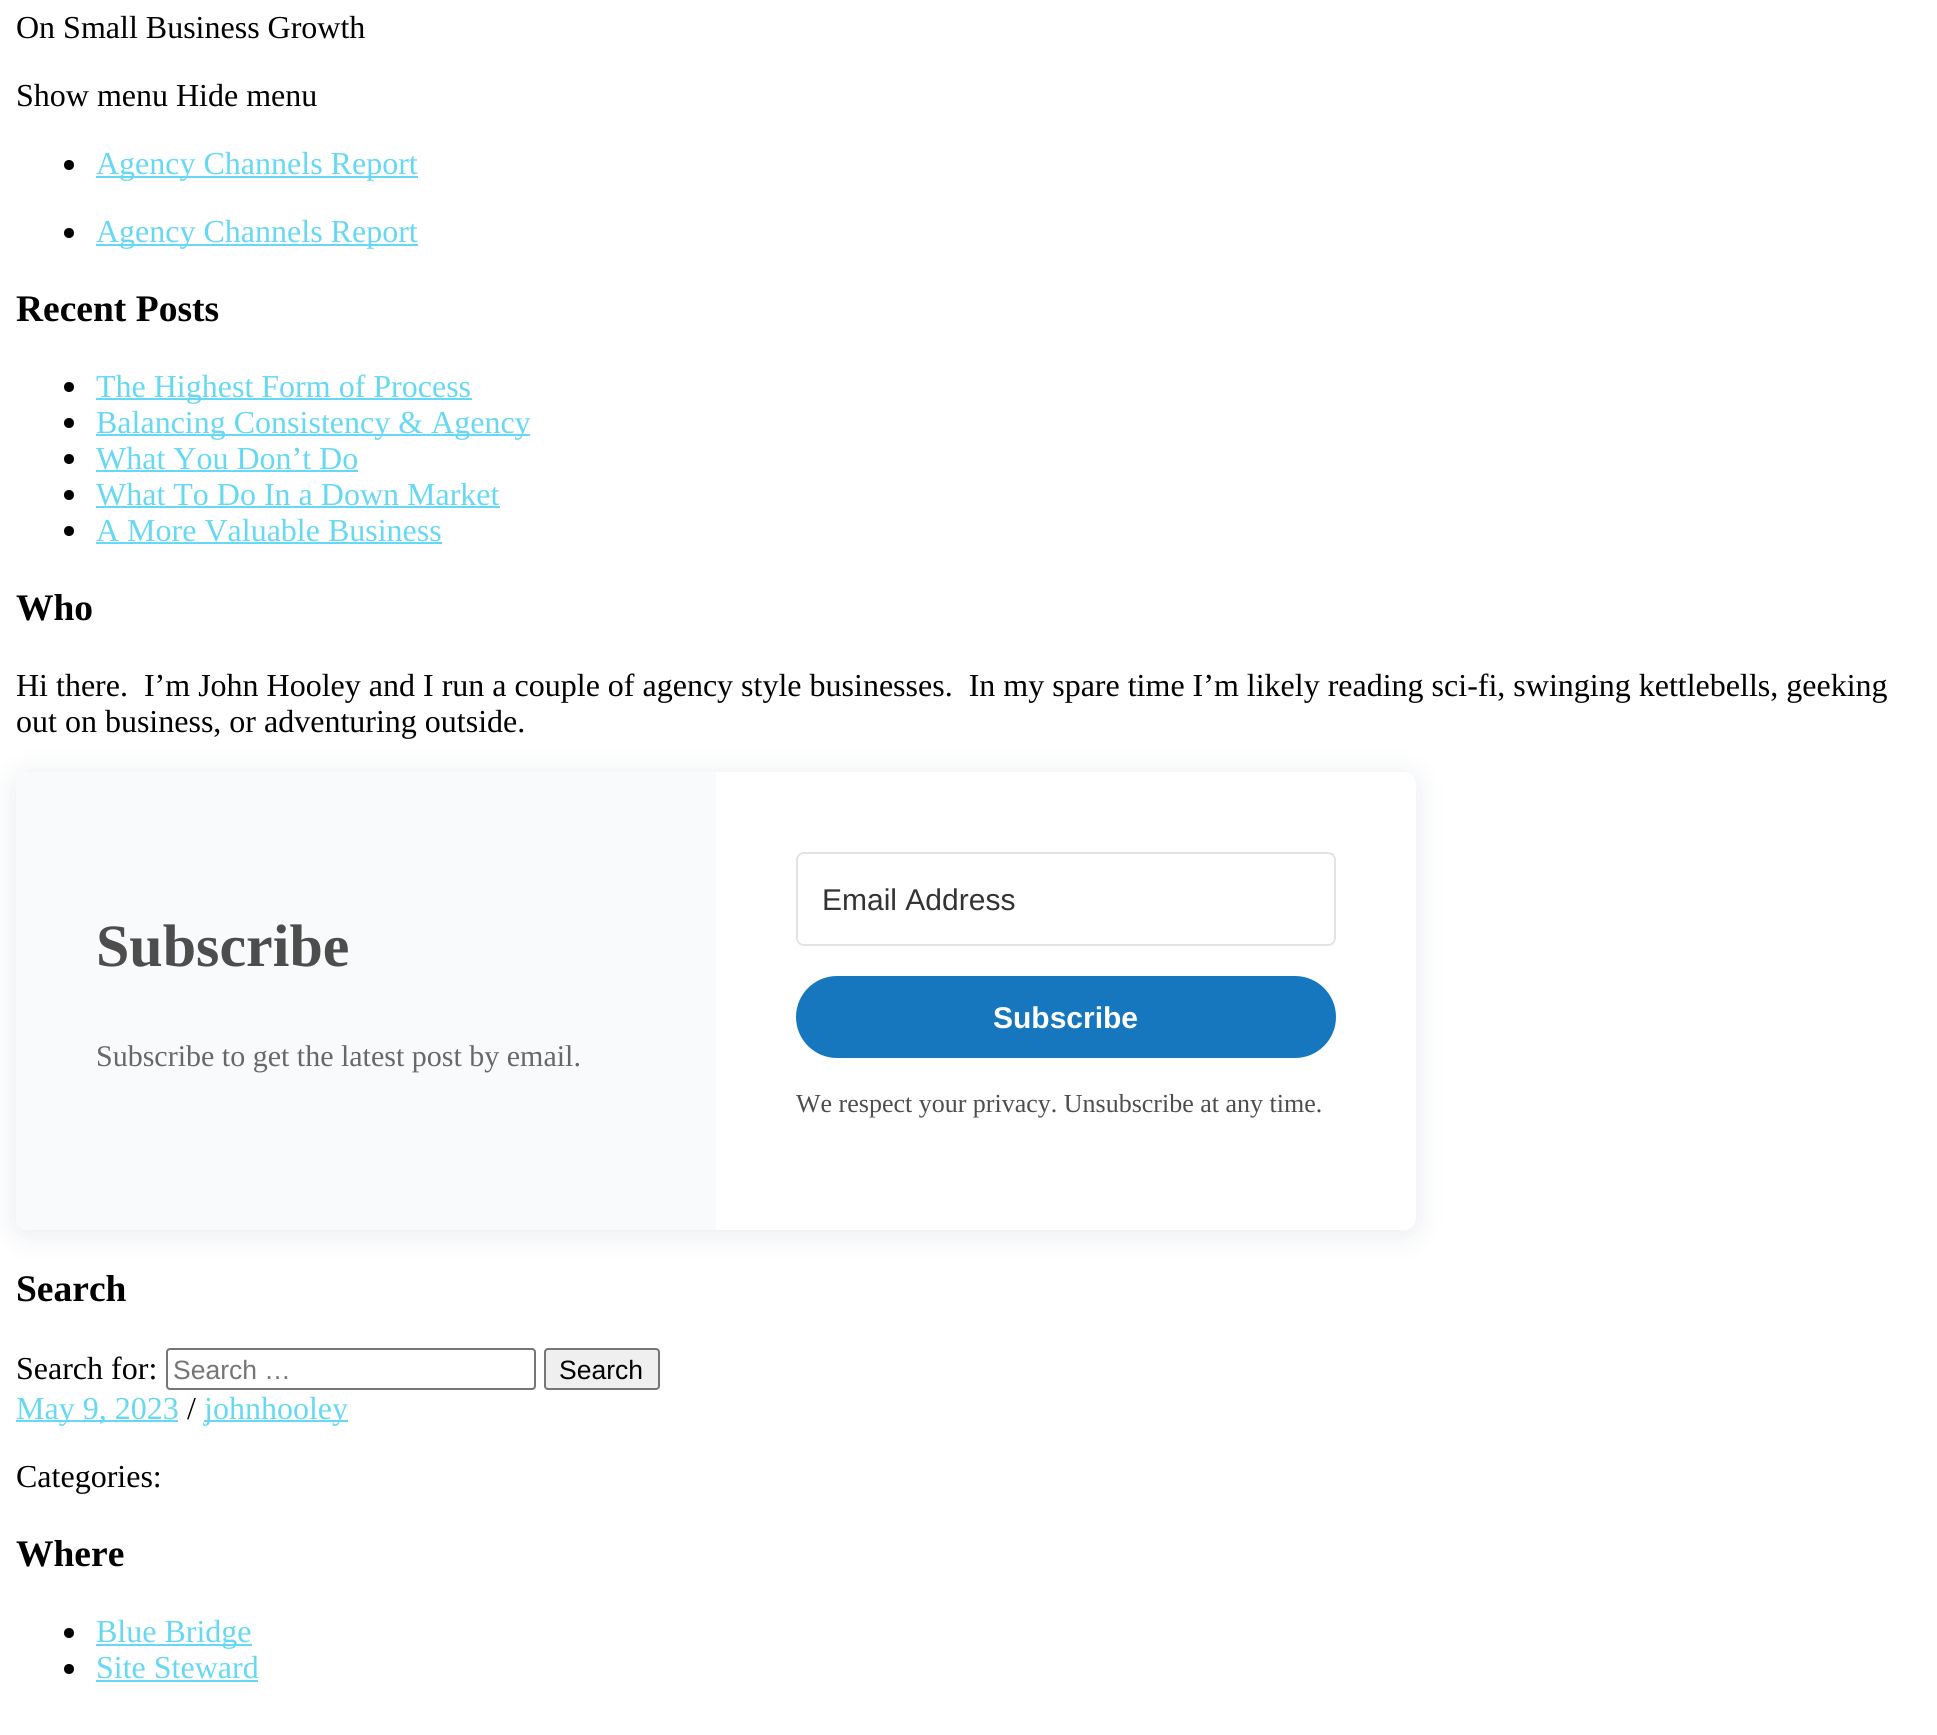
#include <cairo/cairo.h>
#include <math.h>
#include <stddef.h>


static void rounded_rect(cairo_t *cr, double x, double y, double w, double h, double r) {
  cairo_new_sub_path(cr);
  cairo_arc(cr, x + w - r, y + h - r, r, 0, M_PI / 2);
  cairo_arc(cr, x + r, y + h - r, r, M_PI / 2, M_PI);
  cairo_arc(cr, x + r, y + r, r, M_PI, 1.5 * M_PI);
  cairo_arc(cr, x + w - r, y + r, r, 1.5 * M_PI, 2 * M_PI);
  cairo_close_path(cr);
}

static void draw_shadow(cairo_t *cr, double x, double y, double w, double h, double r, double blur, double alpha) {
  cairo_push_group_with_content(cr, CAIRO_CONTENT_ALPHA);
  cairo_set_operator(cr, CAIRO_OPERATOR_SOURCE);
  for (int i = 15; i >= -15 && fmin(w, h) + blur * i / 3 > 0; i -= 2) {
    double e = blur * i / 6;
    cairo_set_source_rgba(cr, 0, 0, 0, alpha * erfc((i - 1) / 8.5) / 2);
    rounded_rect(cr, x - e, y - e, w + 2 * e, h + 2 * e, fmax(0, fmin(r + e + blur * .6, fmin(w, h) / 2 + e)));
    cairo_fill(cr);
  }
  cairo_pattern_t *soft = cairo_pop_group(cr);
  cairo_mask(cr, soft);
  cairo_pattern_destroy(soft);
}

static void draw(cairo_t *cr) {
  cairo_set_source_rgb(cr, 1, 1, 1);
  cairo_paint(cr);
  cairo_set_source_rgb(cr, 0, 0, 0);
  cairo_arc(cr, 69, 165, 5, 0, 2 * M_PI);
  cairo_fill(cr);
  cairo_set_source_rgb(cr, 102 / 255.0, 216 / 255.0, 244 / 255.0);
  cairo_rectangle(cr, 96, 176, 322, 2);
  cairo_fill(cr);
  cairo_set_source_rgb(cr, 0, 0, 0);
  cairo_arc(cr, 69, 233, 5, 0, 2 * M_PI);
  cairo_fill(cr);
  cairo_set_source_rgb(cr, 102 / 255.0, 216 / 255.0, 244 / 255.0);
  cairo_rectangle(cr, 96, 244, 322, 2);
  cairo_fill(cr);
  cairo_set_source_rgb(cr, 0, 0, 0);
  cairo_arc(cr, 69, 387, 5, 0, 2 * M_PI);
  cairo_fill(cr);
  cairo_set_source_rgb(cr, 102 / 255.0, 216 / 255.0, 244 / 255.0);
  cairo_rectangle(cr, 96, 398, 376, 2);
  cairo_fill(cr);
  cairo_set_source_rgb(cr, 0, 0, 0);
  cairo_arc(cr, 69, 423, 5, 0, 2 * M_PI);
  cairo_fill(cr);
  cairo_set_source_rgb(cr, 102 / 255.0, 216 / 255.0, 244 / 255.0);
  cairo_rectangle(cr, 96, 434, 434, 2);
  cairo_fill(cr);
  cairo_set_source_rgb(cr, 0, 0, 0);
  cairo_arc(cr, 69, 459, 5, 0, 2 * M_PI);
  cairo_fill(cr);
  cairo_set_source_rgb(cr, 102 / 255.0, 216 / 255.0, 244 / 255.0);
  cairo_rectangle(cr, 96, 470, 262, 2);
  cairo_fill(cr);
  cairo_set_source_rgb(cr, 0, 0, 0);
  cairo_arc(cr, 69, 495, 5, 0, 2 * M_PI);
  cairo_fill(cr);
  cairo_set_source_rgb(cr, 102 / 255.0, 216 / 255.0, 244 / 255.0);
  cairo_rectangle(cr, 96, 506, 404, 2);
  cairo_fill(cr);
  cairo_set_source_rgb(cr, 0, 0, 0);
  cairo_arc(cr, 69, 531, 5, 0, 2 * M_PI);
  cairo_fill(cr);
  cairo_set_source_rgb(cr, 102 / 255.0, 216 / 255.0, 244 / 255.0);
  cairo_rectangle(cr, 96, 542, 346, 2);
  cairo_fill(cr);
  cairo_set_source_rgb(cr, 210 / 255.0, 214 / 255.0, 220 / 255.0);
  draw_shadow(cr, 16, 776, 1400, 458, 12, 15, 0.5);
  cairo_set_source_rgb(cr, 1, 1, 1);
  rounded_rect(cr, 16, 772, 1400, 458, 12);
  cairo_fill(cr);
  cairo_set_source_rgb(cr, 249 / 255.0, 250 / 255.0, 251 / 255.0);
  cairo_new_path(cr);
  cairo_move_to(cr, 28, 772);
  cairo_line_to(cr, 716, 772);
  cairo_line_to(cr, 716, 1230);
  cairo_line_to(cr, 28, 1230);
  cairo_curve_to(cr, 21.5, 1230, 16, 1224.5, 16, 1218);
  cairo_line_to(cr, 16, 784);
  cairo_curve_to(cr, 16, 777.5, 21.5, 772, 28, 772);
  cairo_close_path(cr);
  cairo_fill(cr);
  rounded_rect(cr, 797, 853, 538, 92, 7);
  cairo_set_source_rgb(cr, 227 / 255.0, 227 / 255.0, 227 / 255.0);
  cairo_stroke(cr);
  cairo_set_source_rgb(cr, 22 / 255.0, 119 / 255.0, 190 / 255.0);
  rounded_rect(cr, 796, 976, 540, 82, 41);
  cairo_fill(cr);
  rounded_rect(cr, 167, 1349, 368, 40, 3);
  cairo_set_source_rgb(cr, 118 / 255.0, 118 / 255.0, 118 / 255.0);
  cairo_stroke(cr);
  cairo_set_source_rgb(cr, 239 / 255.0, 239 / 255.0, 239 / 255.0);
  rounded_rect(cr, 545, 1349, 114, 40, 3);
  cairo_fill_preserve(cr);
  cairo_set_source_rgb(cr, 118 / 255.0, 118 / 255.0, 118 / 255.0);
  cairo_stroke(cr);
  cairo_set_source_rgb(cr, 102 / 255.0, 216 / 255.0, 244 / 255.0);
  cairo_rectangle(cr, 16, 1420, 162, 2);
  cairo_fill(cr);
  cairo_rectangle(cr, 204, 1420, 144, 2);
  cairo_fill(cr);
  cairo_set_source_rgb(cr, 0, 0, 0);
  cairo_arc(cr, 69, 1633, 5, 0, 2 * M_PI);
  cairo_fill(cr);
  cairo_set_source_rgb(cr, 102 / 255.0, 216 / 255.0, 244 / 255.0);
  cairo_rectangle(cr, 96, 1644, 156, 2);
  cairo_fill(cr);
  cairo_set_source_rgb(cr, 0, 0, 0);
  cairo_arc(cr, 69, 1669, 5, 0, 2 * M_PI);
  cairo_fill(cr);
  cairo_set_source_rgb(cr, 102 / 255.0, 216 / 255.0, 244 / 255.0);
  cairo_rectangle(cr, 96, 1680, 162, 2);
  cairo_fill(cr);
  cairo_select_font_face(cr, "Liberation Serif", CAIRO_FONT_SLANT_NORMAL, CAIRO_FONT_WEIGHT_NORMAL);
  cairo_set_font_size(cr, 32);
  cairo_set_source_rgb(cr, 0, 0, 0);
  cairo_move_to(cr, 16, 38);
  cairo_show_text(cr, "On Small Business Growth");
  cairo_move_to(cr, 16, 106);
  cairo_show_text(cr, "Show menu Hide menu");
  cairo_set_source_rgb(cr, 102 / 255.0, 216 / 255.0, 244 / 255.0);
  cairo_move_to(cr, 96, 174);
  cairo_show_text(cr, "Agency Channels Report");
  cairo_move_to(cr, 96, 242);
  cairo_show_text(cr, "Agency Channels Report");
  cairo_select_font_face(cr, "Liberation Serif", CAIRO_FONT_SLANT_NORMAL, CAIRO_FONT_WEIGHT_BOLD);
  cairo_set_font_size(cr, 37.5);
  cairo_set_source_rgb(cr, 0, 0, 0);
  cairo_move_to(cr, 16, 321);
  cairo_show_text(cr, "Recent Posts");
  cairo_select_font_face(cr, "Liberation Serif", CAIRO_FONT_SLANT_NORMAL, CAIRO_FONT_WEIGHT_NORMAL);
  cairo_set_font_size(cr, 32);
  cairo_set_source_rgb(cr, 102 / 255.0, 216 / 255.0, 244 / 255.0);
  cairo_move_to(cr, 96, 397);
  cairo_show_text(cr, "The Highest Form of Process");
  cairo_move_to(cr, 96, 433);
  cairo_show_text(cr, "Balancing Consistency & Agency");
  cairo_move_to(cr, 96, 469);
  cairo_show_text(cr, "What You Don’t Do");
  cairo_move_to(cr, 96, 505);
  cairo_show_text(cr, "What To Do In a Down Market");
  cairo_move_to(cr, 96, 541);
  cairo_show_text(cr, "A More Valuable Business");
  cairo_select_font_face(cr, "Liberation Serif", CAIRO_FONT_SLANT_NORMAL, CAIRO_FONT_WEIGHT_BOLD);
  cairo_set_font_size(cr, 37.5);
  cairo_set_source_rgb(cr, 0, 0, 0);
  cairo_move_to(cr, 16, 620);
  cairo_show_text(cr, "Who");
  cairo_select_font_face(cr, "Liberation Serif", CAIRO_FONT_SLANT_NORMAL, CAIRO_FONT_WEIGHT_NORMAL);
  cairo_set_font_size(cr, 32);
  cairo_move_to(cr, 16, 696);
  cairo_show_text(cr, "Hi there.  I’m John Hooley and I run a couple of agency style businesses.  In my spare time I’m likely reading sci-fi, swinging kettlebells, geeking");
  cairo_move_to(cr, 16, 732);
  cairo_show_text(cr, "out on business, or adventuring outside.");
  cairo_select_font_face(cr, "Liberation Serif", CAIRO_FONT_SLANT_NORMAL, CAIRO_FONT_WEIGHT_BOLD);
  cairo_set_font_size(cr, 60);
  cairo_set_source_rgb(cr, 77 / 255.0, 77 / 255.0, 77 / 255.0);
  cairo_move_to(cr, 96, 966);
  cairo_show_text(cr, "Subscribe");
  cairo_select_font_face(cr, "Liberation Serif", CAIRO_FONT_SLANT_NORMAL, CAIRO_FONT_WEIGHT_NORMAL);
  cairo_set_font_size(cr, 30);
  cairo_set_source_rgb(cr, 104 / 255.0, 104 / 255.0, 104 / 255.0);
  cairo_move_to(cr, 96, 1066);
  cairo_show_text(cr, "Subscribe to get the latest post by email.");
  cairo_select_font_face(cr, "Liberation Sans", CAIRO_FONT_SLANT_NORMAL, CAIRO_FONT_WEIGHT_NORMAL);
  cairo_set_source_rgb(cr, 51 / 255.0, 51 / 255.0, 51 / 255.0);
  cairo_move_to(cr, 822, 910);
  cairo_show_text(cr, "Email Address");
  cairo_select_font_face(cr, "Liberation Sans", CAIRO_FONT_SLANT_NORMAL, CAIRO_FONT_WEIGHT_BOLD);
  cairo_set_source_rgb(cr, 1, 1, 1);
  cairo_move_to(cr, 993, 1028);
  cairo_show_text(cr, "Subscribe");
  cairo_select_font_face(cr, "Liberation Serif", CAIRO_FONT_SLANT_NORMAL, CAIRO_FONT_WEIGHT_NORMAL);
  cairo_set_font_size(cr, 26);
  cairo_set_source_rgb(cr, 77 / 255.0, 77 / 255.0, 77 / 255.0);
  cairo_move_to(cr, 796, 1112);
  cairo_show_text(cr, "We respect your privacy. Unsubscribe at any time.");
  cairo_select_font_face(cr, "Liberation Serif", CAIRO_FONT_SLANT_NORMAL, CAIRO_FONT_WEIGHT_BOLD);
  cairo_set_font_size(cr, 37.5);
  cairo_set_source_rgb(cr, 0, 0, 0);
  cairo_move_to(cr, 16, 1301);
  cairo_show_text(cr, "Search");
  cairo_select_font_face(cr, "Liberation Serif", CAIRO_FONT_SLANT_NORMAL, CAIRO_FONT_WEIGHT_NORMAL);
  cairo_set_font_size(cr, 32);
  cairo_move_to(cr, 16, 1379);
  cairo_show_text(cr, "Search for:");
  cairo_select_font_face(cr, "Liberation Sans", CAIRO_FONT_SLANT_NORMAL, CAIRO_FONT_WEIGHT_NORMAL);
  cairo_set_font_size(cr, 26.5);
  cairo_set_source_rgb(cr, 117 / 255.0, 117 / 255.0, 117 / 255.0);
  cairo_move_to(cr, 173, 1379);
  cairo_show_text(cr, "Search …");
  cairo_set_source_rgb(cr, 0, 0, 0);
  cairo_move_to(cr, 559, 1379);
  cairo_show_text(cr, "Search");
  cairo_select_font_face(cr, "Liberation Serif", CAIRO_FONT_SLANT_NORMAL, CAIRO_FONT_WEIGHT_NORMAL);
  cairo_set_font_size(cr, 32);
  cairo_set_source_rgb(cr, 102 / 255.0, 216 / 255.0, 244 / 255.0);
  cairo_move_to(cr, 16, 1419);
  cairo_show_text(cr, "May 9, 2023");
  cairo_set_source_rgb(cr, 0, 0, 0);
  cairo_move_to(cr, 187, 1419);
  cairo_show_text(cr, "/");
  cairo_set_source_rgb(cr, 102 / 255.0, 216 / 255.0, 244 / 255.0);
  cairo_move_to(cr, 204, 1419);
  cairo_show_text(cr, "johnhooley");
  cairo_set_source_rgb(cr, 0, 0, 0);
  cairo_move_to(cr, 16, 1487);
  cairo_show_text(cr, "Categories:");
  cairo_select_font_face(cr, "Liberation Serif", CAIRO_FONT_SLANT_NORMAL, CAIRO_FONT_WEIGHT_BOLD);
  cairo_set_font_size(cr, 37.5);
  cairo_move_to(cr, 16, 1566);
  cairo_show_text(cr, "Where");
  cairo_select_font_face(cr, "Liberation Serif", CAIRO_FONT_SLANT_NORMAL, CAIRO_FONT_WEIGHT_NORMAL);
  cairo_set_font_size(cr, 32);
  cairo_set_source_rgb(cr, 102 / 255.0, 216 / 255.0, 244 / 255.0);
  cairo_move_to(cr, 96, 1642);
  cairo_show_text(cr, "Blue Bridge");
  cairo_move_to(cr, 96, 1678);
  cairo_show_text(cr, "Site Steward");
}

int main(void) {
  cairo_surface_t *surface = cairo_image_surface_create(CAIRO_FORMAT_RGB24, 1937, 1735);
  cairo_t *cr = cairo_create(surface);
  cairo_font_options_t *options = cairo_font_options_create();
  cairo_font_options_set_hint_metrics(options, CAIRO_HINT_METRICS_OFF);
  cairo_font_options_set_hint_style(options, CAIRO_HINT_STYLE_NONE);
  cairo_set_font_options(cr, options);
  cairo_set_miter_limit(cr, 4);
  draw(cr);
  cairo_surface_write_to_png(surface, "out.png");
  cairo_font_options_destroy(options);
  cairo_destroy(cr);
  cairo_surface_destroy(surface);
  return 0;
}
